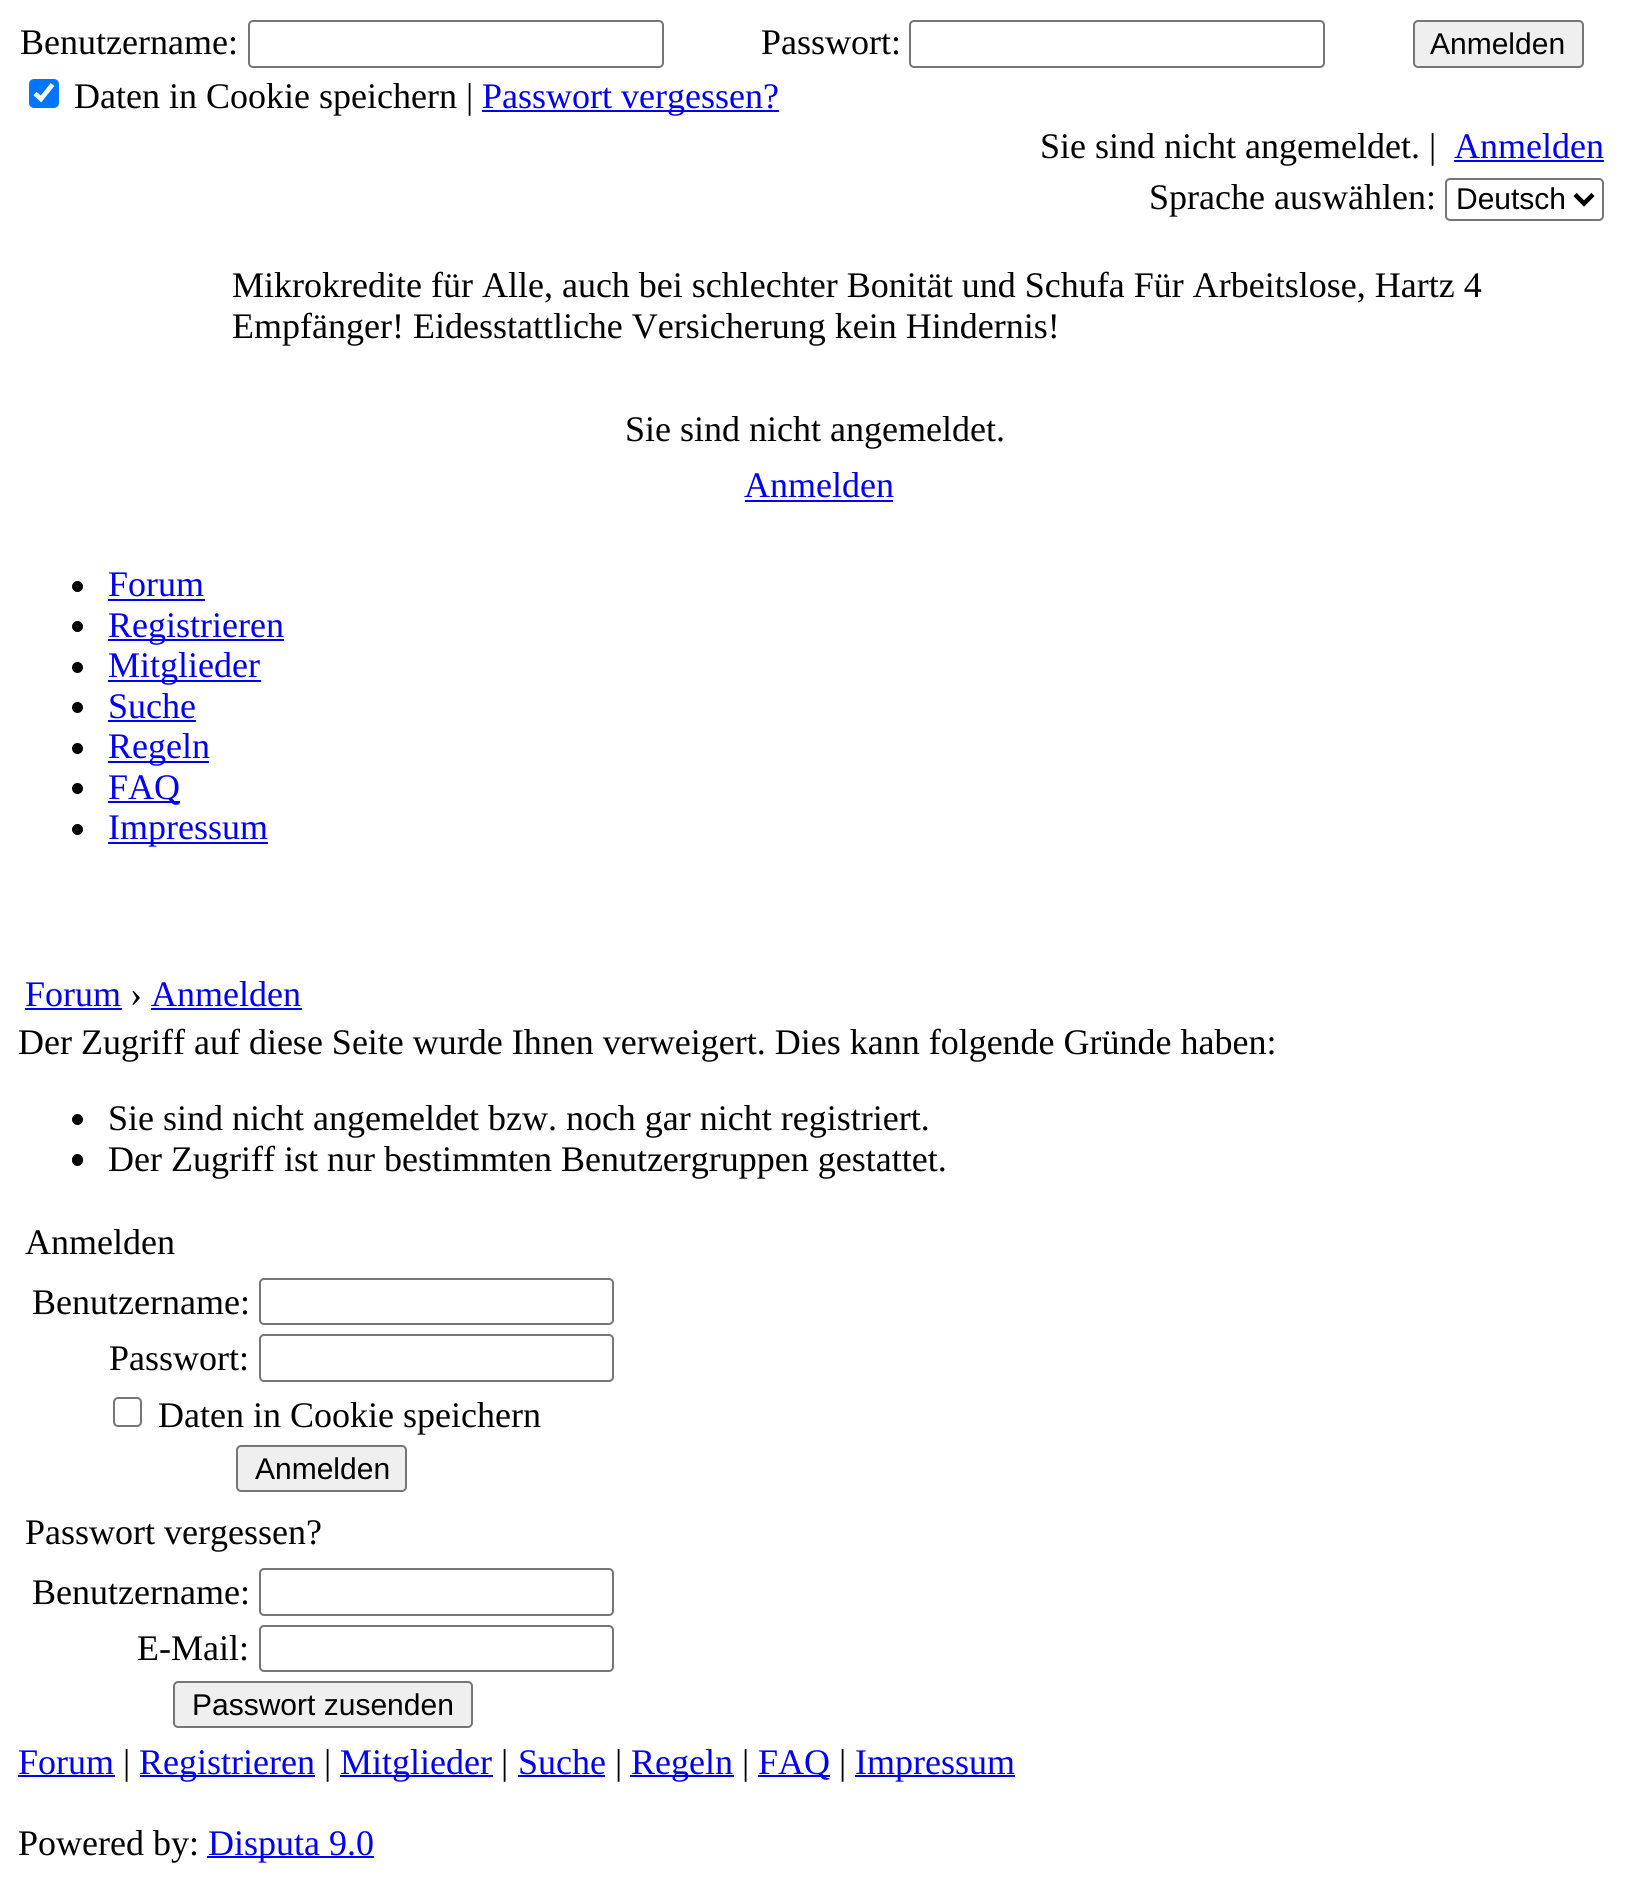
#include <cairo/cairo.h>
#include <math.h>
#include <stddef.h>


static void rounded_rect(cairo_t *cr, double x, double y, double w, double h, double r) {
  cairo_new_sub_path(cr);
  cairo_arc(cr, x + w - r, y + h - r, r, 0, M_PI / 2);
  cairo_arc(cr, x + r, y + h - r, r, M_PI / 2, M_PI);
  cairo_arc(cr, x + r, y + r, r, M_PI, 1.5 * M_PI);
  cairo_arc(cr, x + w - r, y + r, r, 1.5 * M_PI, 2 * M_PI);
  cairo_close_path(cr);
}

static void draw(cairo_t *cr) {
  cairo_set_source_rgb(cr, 1, 1, 1);
  cairo_paint(cr);
  rounded_rect(cr, 249, 21, 414, 46, 4);
  cairo_set_source_rgb(cr, 118 / 255.0, 118 / 255.0, 118 / 255.0);
  cairo_stroke(cr);
  rounded_rect(cr, 910, 21, 414, 46, 4);
  cairo_stroke(cr);
  cairo_set_source_rgb(cr, 239 / 255.0, 239 / 255.0, 239 / 255.0);
  rounded_rect(cr, 1414, 21, 169, 46, 4);
  cairo_fill_preserve(cr);
  cairo_set_source_rgb(cr, 118 / 255.0, 118 / 255.0, 118 / 255.0);
  cairo_stroke(cr);
  cairo_set_source_rgb(cr, 0, 117 / 255.0, 1);
  rounded_rect(cr, 29, 79, 30, 29, 5);
  cairo_fill(cr);
  cairo_new_path(cr);
  cairo_move_to(cr, 35, 93.5);
  cairo_line_to(cr, 41, 99);
  cairo_line_to(cr, 52.5, 84.5);
  cairo_set_source_rgb(cr, 1, 1, 1);
  cairo_set_line_width(cr, 4.7);
  cairo_stroke(cr);
  cairo_set_source_rgb(cr, 0, 0, 238 / 255.0);
  cairo_rectangle(cr, 482, 110, 297, 2);
  cairo_fill(cr);
  cairo_rectangle(cr, 1454, 160, 150, 2);
  cairo_fill(cr);
  rounded_rect(cr, 1446, 179, 157, 41, 4);
  cairo_set_source_rgb(cr, 118 / 255.0, 118 / 255.0, 118 / 255.0);
  cairo_set_line_width(cr, 2);
  cairo_stroke(cr);
  cairo_new_path(cr);
  cairo_move_to(cr, 1575, 194.5);
  cairo_line_to(cr, 1584, 203.5);
  cairo_line_to(cr, 1593, 194.5);
  cairo_set_source_rgb(cr, 0, 0, 0);
  cairo_set_line_width(cr, 4.5);
  cairo_stroke(cr);
  cairo_set_source_rgb(cr, 0, 0, 238 / 255.0);
  cairo_rectangle(cr, 745, 500, 148, 2);
  cairo_fill(cr);
  cairo_set_source_rgb(cr, 0, 0, 0);
  cairo_arc(cr, 77.5, 586.5, 5.5, 0, 2 * M_PI);
  cairo_fill(cr);
  cairo_set_source_rgb(cr, 0, 0, 238 / 255.0);
  cairo_rectangle(cr, 108, 599, 97, 2);
  cairo_fill(cr);
  cairo_set_source_rgb(cr, 0, 0, 0);
  cairo_arc(cr, 77.5, 626.5, 5.5, 0, 2 * M_PI);
  cairo_fill(cr);
  cairo_set_source_rgb(cr, 0, 0, 238 / 255.0);
  cairo_rectangle(cr, 108, 639, 176, 2);
  cairo_fill(cr);
  cairo_set_source_rgb(cr, 0, 0, 0);
  cairo_arc(cr, 77.5, 667.5, 5.5, 0, 2 * M_PI);
  cairo_fill(cr);
  cairo_set_source_rgb(cr, 0, 0, 238 / 255.0);
  cairo_rectangle(cr, 108, 680, 153, 2);
  cairo_fill(cr);
  cairo_set_source_rgb(cr, 0, 0, 0);
  cairo_arc(cr, 77.5, 707.5, 5.5, 0, 2 * M_PI);
  cairo_fill(cr);
  cairo_set_source_rgb(cr, 0, 0, 238 / 255.0);
  cairo_rectangle(cr, 108, 720, 88, 2);
  cairo_fill(cr);
  cairo_set_source_rgb(cr, 0, 0, 0);
  cairo_arc(cr, 77.5, 748.5, 5.5, 0, 2 * M_PI);
  cairo_fill(cr);
  cairo_set_source_rgb(cr, 0, 0, 238 / 255.0);
  cairo_rectangle(cr, 108, 761, 101, 2);
  cairo_fill(cr);
  cairo_set_source_rgb(cr, 0, 0, 0);
  cairo_arc(cr, 77.5, 788.5, 5.5, 0, 2 * M_PI);
  cairo_fill(cr);
  cairo_set_source_rgb(cr, 0, 0, 238 / 255.0);
  cairo_rectangle(cr, 108, 801, 72, 2);
  cairo_fill(cr);
  cairo_set_source_rgb(cr, 0, 0, 0);
  cairo_arc(cr, 77.5, 829.5, 5.5, 0, 2 * M_PI);
  cairo_fill(cr);
  cairo_set_source_rgb(cr, 0, 0, 238 / 255.0);
  cairo_rectangle(cr, 108, 842, 160, 2);
  cairo_fill(cr);
  cairo_rectangle(cr, 25, 1008, 97, 2);
  cairo_fill(cr);
  cairo_rectangle(cr, 151, 1008, 151, 2);
  cairo_fill(cr);
  cairo_set_source_rgb(cr, 0, 0, 0);
  cairo_arc(cr, 77.5, 1119.5, 5.5, 0, 2 * M_PI);
  cairo_fill(cr);
  rounded_rect(cr, 72, 1154, 11, 12, 5.5);
  cairo_fill(cr);
  rounded_rect(cr, 260, 1279, 353, 45, 4);
  cairo_set_source_rgb(cr, 118 / 255.0, 118 / 255.0, 118 / 255.0);
  cairo_set_line_width(cr, 2);
  cairo_stroke(cr);
  rounded_rect(cr, 260, 1335, 353, 46, 4);
  cairo_stroke(cr);
  rounded_rect(cr, 114, 1398, 27, 28, 4);
  cairo_stroke(cr);
  cairo_set_source_rgb(cr, 239 / 255.0, 239 / 255.0, 239 / 255.0);
  rounded_rect(cr, 237, 1446, 169, 45, 4);
  cairo_fill_preserve(cr);
  cairo_set_source_rgb(cr, 118 / 255.0, 118 / 255.0, 118 / 255.0);
  cairo_stroke(cr);
  rounded_rect(cr, 260, 1569, 353, 46, 4);
  cairo_stroke(cr);
  rounded_rect(cr, 260, 1626, 353, 45, 4);
  cairo_stroke(cr);
  cairo_set_source_rgb(cr, 239 / 255.0, 239 / 255.0, 239 / 255.0);
  rounded_rect(cr, 174, 1682, 298, 45, 4);
  cairo_fill_preserve(cr);
  cairo_set_source_rgb(cr, 118 / 255.0, 118 / 255.0, 118 / 255.0);
  cairo_stroke(cr);
  cairo_set_source_rgb(cr, 0, 0, 238 / 255.0);
  cairo_rectangle(cr, 18, 1775, 97, 2);
  cairo_fill(cr);
  cairo_rectangle(cr, 140, 1775, 175, 2);
  cairo_fill(cr);
  cairo_rectangle(cr, 340, 1775, 153, 2);
  cairo_fill(cr);
  cairo_rectangle(cr, 518, 1775, 87, 2);
  cairo_fill(cr);
  cairo_rectangle(cr, 630, 1775, 104, 2);
  cairo_fill(cr);
  cairo_rectangle(cr, 758, 1775, 72, 2);
  cairo_fill(cr);
  cairo_rectangle(cr, 855, 1775, 160, 2);
  cairo_fill(cr);
  cairo_rectangle(cr, 207, 1856, 167, 2);
  cairo_fill(cr);
  cairo_select_font_face(cr, "Liberation Serif", CAIRO_FONT_SLANT_NORMAL, CAIRO_FONT_WEIGHT_NORMAL);
  cairo_set_font_size(cr, 36);
  cairo_set_source_rgb(cr, 0, 0, 0);
  cairo_move_to(cr, 20, 54);
  cairo_show_text(cr, "Benutzername:");
  cairo_move_to(cr, 761, 54);
  cairo_show_text(cr, "Passwort:");
  cairo_select_font_face(cr, "Liberation Sans", CAIRO_FONT_SLANT_NORMAL, CAIRO_FONT_WEIGHT_NORMAL);
  cairo_set_font_size(cr, 30);
  cairo_move_to(cr, 1430, 54);
  cairo_show_text(cr, "Anmelden");
  cairo_select_font_face(cr, "Liberation Serif", CAIRO_FONT_SLANT_NORMAL, CAIRO_FONT_WEIGHT_NORMAL);
  cairo_set_font_size(cr, 36);
  cairo_move_to(cr, 74, 108);
  cairo_show_text(cr, "Daten in Cookie speichern |");
  cairo_set_source_rgb(cr, 0, 0, 238 / 255.0);
  cairo_move_to(cr, 482, 108);
  cairo_show_text(cr, "Passwort vergessen?");
  cairo_set_source_rgb(cr, 0, 0, 0);
  cairo_move_to(cr, 1040, 158);
  cairo_show_text(cr, "Sie sind nicht angemeldet. |");
  cairo_set_source_rgb(cr, 0, 0, 238 / 255.0);
  cairo_move_to(cr, 1454, 158);
  cairo_show_text(cr, "Anmelden");
  cairo_set_source_rgb(cr, 0, 0, 0);
  cairo_move_to(cr, 1149, 209);
  cairo_show_text(cr, "Sprache auswählen:");
  cairo_select_font_face(cr, "Liberation Sans", CAIRO_FONT_SLANT_NORMAL, CAIRO_FONT_WEIGHT_NORMAL);
  cairo_set_font_size(cr, 30);
  cairo_move_to(cr, 1456, 209);
  cairo_show_text(cr, "Deutsch");
  cairo_select_font_face(cr, "Liberation Serif", CAIRO_FONT_SLANT_NORMAL, CAIRO_FONT_WEIGHT_NORMAL);
  cairo_set_font_size(cr, 36);
  cairo_move_to(cr, 232, 297);
  cairo_show_text(cr, "Mikrokredite für Alle, auch bei schlechter Bonität und Schufa Für Arbeitslose, Hartz 4");
  cairo_move_to(cr, 232, 338);
  cairo_show_text(cr, "Empfänger! Eidesstattliche Versicherung kein Hindernis!");
  cairo_move_to(cr, 625, 441);
  cairo_show_text(cr, "Sie sind nicht angemeldet.");
  cairo_set_source_rgb(cr, 0, 0, 238 / 255.0);
  cairo_move_to(cr, 744, 497);
  cairo_show_text(cr, "Anmelden");
  cairo_move_to(cr, 108, 596);
  cairo_show_text(cr, "Forum");
  cairo_move_to(cr, 108, 637);
  cairo_show_text(cr, "Registrieren");
  cairo_move_to(cr, 108, 677);
  cairo_show_text(cr, "Mitglieder");
  cairo_move_to(cr, 108, 718);
  cairo_show_text(cr, "Suche");
  cairo_move_to(cr, 108, 758);
  cairo_show_text(cr, "Regeln");
  cairo_move_to(cr, 108, 799);
  cairo_show_text(cr, "FAQ");
  cairo_move_to(cr, 108, 839);
  cairo_show_text(cr, "Impressum");
  cairo_move_to(cr, 25, 1006);
  cairo_show_text(cr, "Forum");
  cairo_set_source_rgb(cr, 0, 0, 0);
  cairo_move_to(cr, 130, 1006);
  cairo_show_text(cr, "›");
  cairo_set_source_rgb(cr, 0, 0, 238 / 255.0);
  cairo_move_to(cr, 151, 1006);
  cairo_show_text(cr, "Anmelden");
  cairo_set_source_rgb(cr, 0, 0, 0);
  cairo_move_to(cr, 18, 1054);
  cairo_show_text(cr, "Der Zugriff auf diese Seite wurde Ihnen verweigert. Dies kann folgende Gründe haben:");
  cairo_move_to(cr, 108, 1130);
  cairo_show_text(cr, "Sie sind nicht angemeldet bzw. noch gar nicht registriert.");
  cairo_move_to(cr, 108, 1171);
  cairo_show_text(cr, "Der Zugriff ist nur bestimmten Benutzergruppen gestattet.");
  cairo_move_to(cr, 25, 1254);
  cairo_show_text(cr, "Anmelden");
  cairo_move_to(cr, 32, 1314);
  cairo_show_text(cr, "Benutzername:");
  cairo_move_to(cr, 109, 1370);
  cairo_show_text(cr, "Passwort:");
  cairo_move_to(cr, 158, 1427);
  cairo_show_text(cr, "Daten in Cookie speichern");
  cairo_select_font_face(cr, "Liberation Sans", CAIRO_FONT_SLANT_NORMAL, CAIRO_FONT_WEIGHT_NORMAL);
  cairo_set_font_size(cr, 30);
  cairo_move_to(cr, 255, 1479);
  cairo_show_text(cr, "Anmelden");
  cairo_select_font_face(cr, "Liberation Serif", CAIRO_FONT_SLANT_NORMAL, CAIRO_FONT_WEIGHT_NORMAL);
  cairo_set_font_size(cr, 36);
  cairo_move_to(cr, 25, 1544);
  cairo_show_text(cr, "Passwort vergessen?");
  cairo_move_to(cr, 32, 1604);
  cairo_show_text(cr, "Benutzername:");
  cairo_move_to(cr, 137, 1660);
  cairo_show_text(cr, "E-Mail:");
  cairo_select_font_face(cr, "Liberation Sans", CAIRO_FONT_SLANT_NORMAL, CAIRO_FONT_WEIGHT_NORMAL);
  cairo_set_font_size(cr, 30);
  cairo_move_to(cr, 192, 1715);
  cairo_show_text(cr, "Passwort zusenden");
  cairo_select_font_face(cr, "Liberation Serif", CAIRO_FONT_SLANT_NORMAL, CAIRO_FONT_WEIGHT_NORMAL);
  cairo_set_font_size(cr, 36);
  cairo_set_source_rgb(cr, 0, 0, 238 / 255.0);
  cairo_move_to(cr, 18, 1774);
  cairo_show_text(cr, "Forum");
  cairo_set_source_rgb(cr, 0, 0, 0);
  cairo_move_to(cr, 123, 1774);
  cairo_show_text(cr, "|");
  cairo_set_source_rgb(cr, 0, 0, 238 / 255.0);
  cairo_move_to(cr, 139, 1774);
  cairo_show_text(cr, "Registrieren");
  cairo_set_source_rgb(cr, 0, 0, 0);
  cairo_move_to(cr, 324, 1774);
  cairo_show_text(cr, "|");
  cairo_set_source_rgb(cr, 0, 0, 238 / 255.0);
  cairo_move_to(cr, 340, 1774);
  cairo_show_text(cr, "Mitglieder");
  cairo_set_source_rgb(cr, 0, 0, 0);
  cairo_move_to(cr, 501, 1774);
  cairo_show_text(cr, "|");
  cairo_set_source_rgb(cr, 0, 0, 238 / 255.0);
  cairo_move_to(cr, 518, 1774);
  cairo_show_text(cr, "Suche");
  cairo_set_source_rgb(cr, 0, 0, 0);
  cairo_move_to(cr, 615, 1774);
  cairo_show_text(cr, "|");
  cairo_set_source_rgb(cr, 0, 0, 238 / 255.0);
  cairo_move_to(cr, 631, 1774);
  cairo_show_text(cr, "Regeln");
  cairo_set_source_rgb(cr, 0, 0, 0);
  cairo_move_to(cr, 742, 1774);
  cairo_show_text(cr, "|");
  cairo_set_source_rgb(cr, 0, 0, 238 / 255.0);
  cairo_move_to(cr, 758, 1774);
  cairo_show_text(cr, "FAQ");
  cairo_set_source_rgb(cr, 0, 0, 0);
  cairo_move_to(cr, 839, 1774);
  cairo_show_text(cr, "|");
  cairo_set_source_rgb(cr, 0, 0, 238 / 255.0);
  cairo_move_to(cr, 855, 1774);
  cairo_show_text(cr, "Impressum");
  cairo_set_source_rgb(cr, 0, 0, 0);
  cairo_move_to(cr, 18, 1855);
  cairo_show_text(cr, "Powered by:");
  cairo_set_source_rgb(cr, 0, 0, 238 / 255.0);
  cairo_move_to(cr, 208, 1855);
  cairo_show_text(cr, "Disputa 9.0");
}

int main(void) {
  cairo_surface_t *surface = cairo_image_surface_create(CAIRO_FORMAT_RGB24, 1627, 1890);
  cairo_t *cr = cairo_create(surface);
  cairo_font_options_t *options = cairo_font_options_create();
  cairo_font_options_set_hint_metrics(options, CAIRO_HINT_METRICS_OFF);
  cairo_font_options_set_hint_style(options, CAIRO_HINT_STYLE_NONE);
  cairo_set_font_options(cr, options);
  cairo_set_miter_limit(cr, 4);
  draw(cr);
  cairo_surface_write_to_png(surface, "out.png");
  cairo_font_options_destroy(options);
  cairo_destroy(cr);
  cairo_surface_destroy(surface);
  return 0;
}
